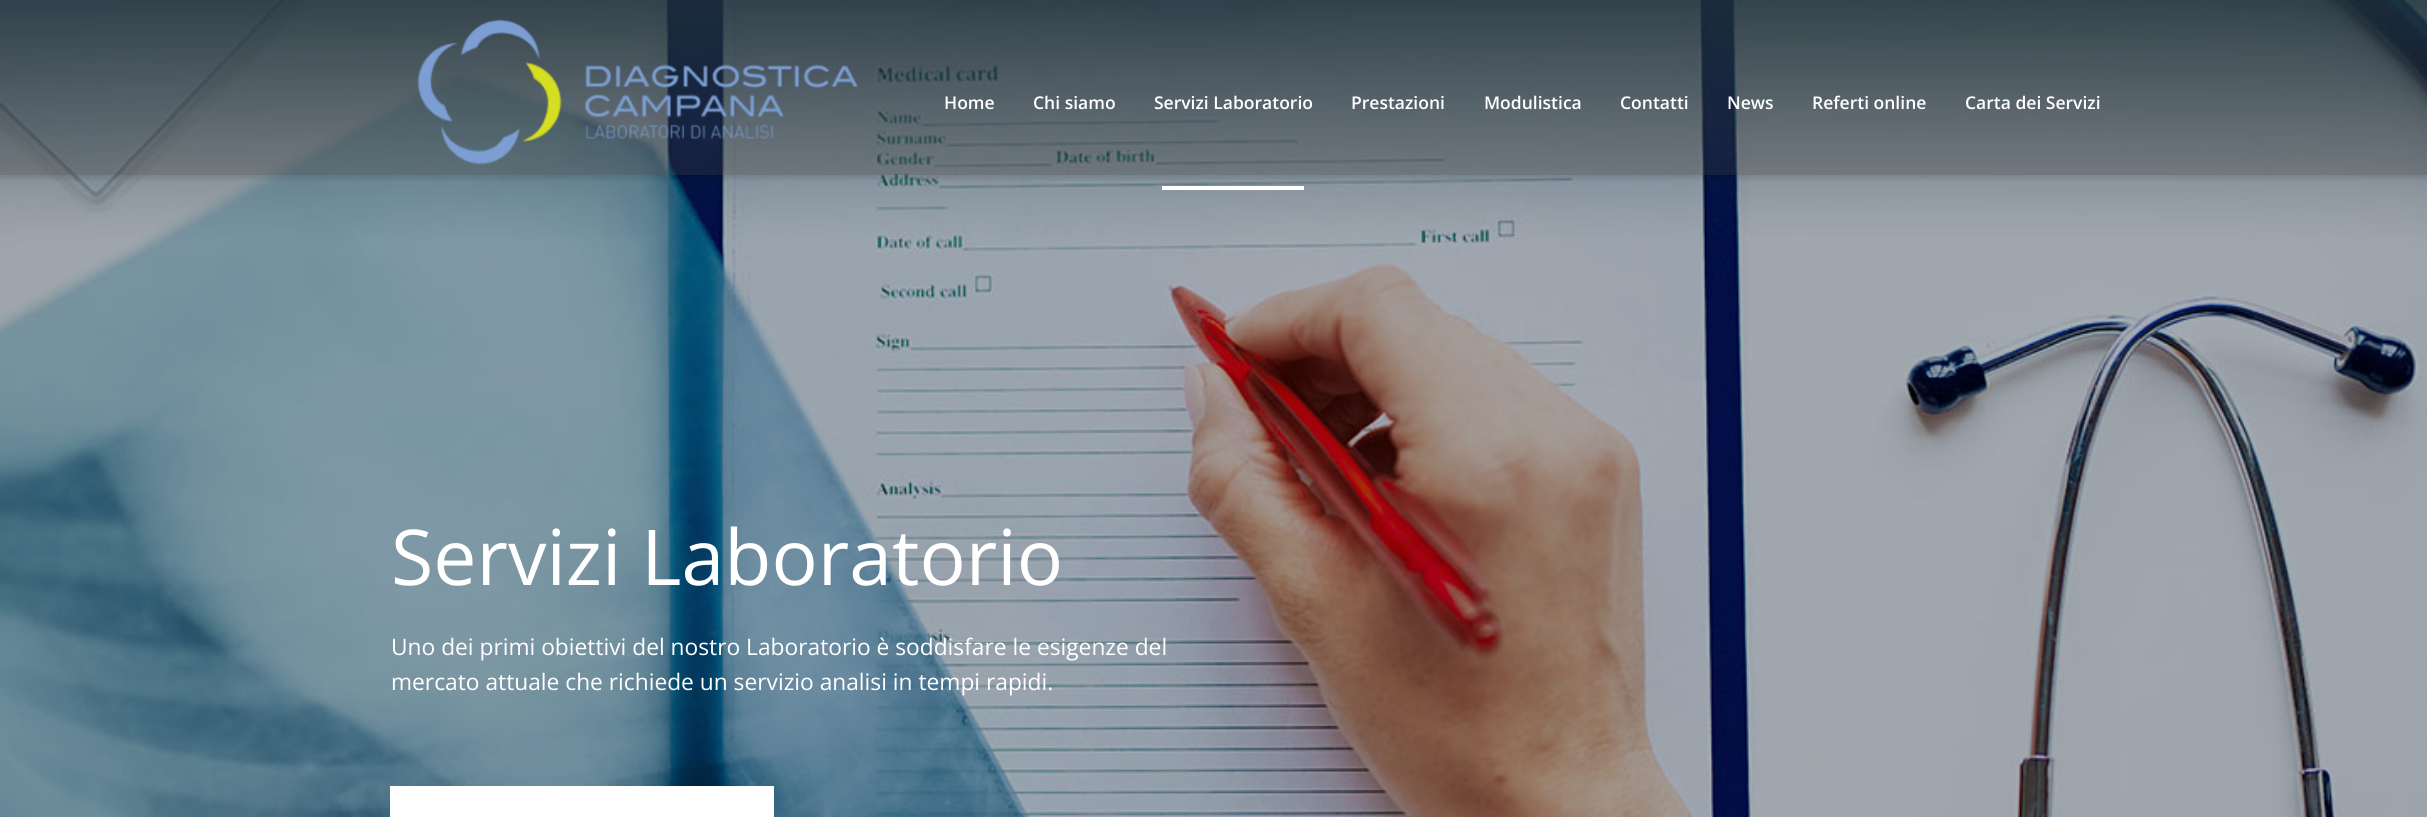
#include <cairo/cairo.h>
#include <math.h>
#include <stddef.h>


static void rounded_rect(cairo_t *cr, double x, double y, double w, double h, double r) {
  cairo_new_sub_path(cr);
  cairo_arc(cr, x + w - r, y + h - r, r, 0, M_PI / 2);
  cairo_arc(cr, x + r, y + h - r, r, M_PI / 2, M_PI);
  cairo_arc(cr, x + r, y + r, r, M_PI, 1.5 * M_PI);
  cairo_arc(cr, x + w - r, y + r, r, 1.5 * M_PI, 2 * M_PI);
  cairo_close_path(cr);
}

static void draw_shadow(cairo_t *cr, double x, double y, double w, double h, double r, double blur, double alpha) {
  cairo_push_group_with_content(cr, CAIRO_CONTENT_ALPHA);
  cairo_set_operator(cr, CAIRO_OPERATOR_SOURCE);
  for (int i = 15; i >= -15 && fmin(w, h) + blur * i / 3 > 0; i -= 2) {
    double e = blur * i / 6;
    cairo_set_source_rgba(cr, 0, 0, 0, alpha * erfc((i - 1) / 8.5) / 2);
    rounded_rect(cr, x - e, y - e, w + 2 * e, h + 2 * e, fmax(0, fmin(r + e + blur * .6, fmin(w, h) / 2 + e)));
    cairo_fill(cr);
  }
  cairo_pattern_t *soft = cairo_pop_group(cr);
  cairo_mask(cr, soft);
  cairo_pattern_destroy(soft);
}

static void draw_image(cairo_t *cr, const char *path, double x, double y, double w, double h) {
  cairo_surface_t *image = cairo_image_surface_create_from_png(path);
  cairo_save(cr);
  cairo_set_source_surface(cr, image, x, y);
  cairo_rectangle(cr, x, y, w, h);
  cairo_fill(cr);
  cairo_restore(cr);
  cairo_surface_destroy(image);
}

static void draw(cairo_t *cr) {
  cairo_set_source_rgb(cr, 1, 1, 1);
  cairo_paint(cr);
  draw_image(cr, "images/2.png", 0, 0, 2427, 817);
  cairo_set_source_rgba(cr, 1, 1, 1, 0.1);
  cairo_rectangle(cr, 0, 0, 2427, 175);
  cairo_fill(cr);
  cairo_save(cr);
  cairo_rectangle(cr, 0, 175, 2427, 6);
  cairo_clip(cr);
  cairo_set_source_rgb(cr, 0, 0, 0);
  draw_shadow(cr, 0, 4, 2427, 175, 0, 2.5, 0.1);
  cairo_restore(cr);
  cairo_set_source_rgba(cr, 0, 0, 0, 0.24);
  cairo_rectangle(cr, 0, 0, 2427, 175);
  cairo_fill(cr);
  draw_image(cr, "images/1.png", 417, 19, 441, 146);
  cairo_set_source_rgb(cr, 1, 1, 1);
  cairo_rectangle(cr, 1162, 186, 142, 4);
  cairo_fill(cr);
  cairo_rectangle(cr, 390, 786, 384, 31);
  cairo_fill(cr);
  cairo_select_font_face(cr, "Open Sans SemiBold", CAIRO_FONT_SLANT_NORMAL, CAIRO_FONT_WEIGHT_NORMAL);
  cairo_set_font_size(cr, 17.5);
  cairo_move_to(cr, 944, 109);
  cairo_show_text(cr, "Home");
  cairo_move_to(cr, 1033, 109);
  cairo_show_text(cr, "Chi siamo");
  cairo_move_to(cr, 1154, 109);
  cairo_show_text(cr, "Servizi Laboratorio");
  cairo_move_to(cr, 1351, 109);
  cairo_show_text(cr, "Prestazioni");
  cairo_move_to(cr, 1484, 109);
  cairo_show_text(cr, "Modulistica");
  cairo_move_to(cr, 1620, 109);
  cairo_show_text(cr, "Contatti");
  cairo_move_to(cr, 1727, 109);
  cairo_show_text(cr, "News");
  cairo_move_to(cr, 1812, 109);
  cairo_show_text(cr, "Referti online");
  cairo_move_to(cr, 1965, 109);
  cairo_show_text(cr, "Carta dei Servizi");
  cairo_select_font_face(cr, "Open Sans", CAIRO_FONT_SLANT_NORMAL, CAIRO_FONT_WEIGHT_NORMAL);
  cairo_set_font_size(cr, 77);
  cairo_move_to(cr, 391, 585);
  cairo_show_text(cr, "Servizi Laboratorio");
  cairo_set_font_size(cr, 22.75);
  cairo_move_to(cr, 391, 655);
  cairo_show_text(cr, "Uno dei primi obiettivi del nostro Laboratorio è soddisfare le esigenze del");
  cairo_move_to(cr, 391, 690);
  cairo_show_text(cr, "mercato attuale che richiede un servizio analisi in tempi rapidi.");
}

int main(void) {
  cairo_surface_t *surface = cairo_image_surface_create(CAIRO_FORMAT_RGB24, 2427, 817);
  cairo_t *cr = cairo_create(surface);
  cairo_font_options_t *options = cairo_font_options_create();
  cairo_font_options_set_hint_metrics(options, CAIRO_HINT_METRICS_OFF);
  cairo_font_options_set_hint_style(options, CAIRO_HINT_STYLE_NONE);
  cairo_set_font_options(cr, options);
  cairo_set_miter_limit(cr, 4);
  draw(cr);
  cairo_surface_write_to_png(surface, "out.png");
  cairo_font_options_destroy(options);
  cairo_destroy(cr);
  cairo_surface_destroy(surface);
  return 0;
}
